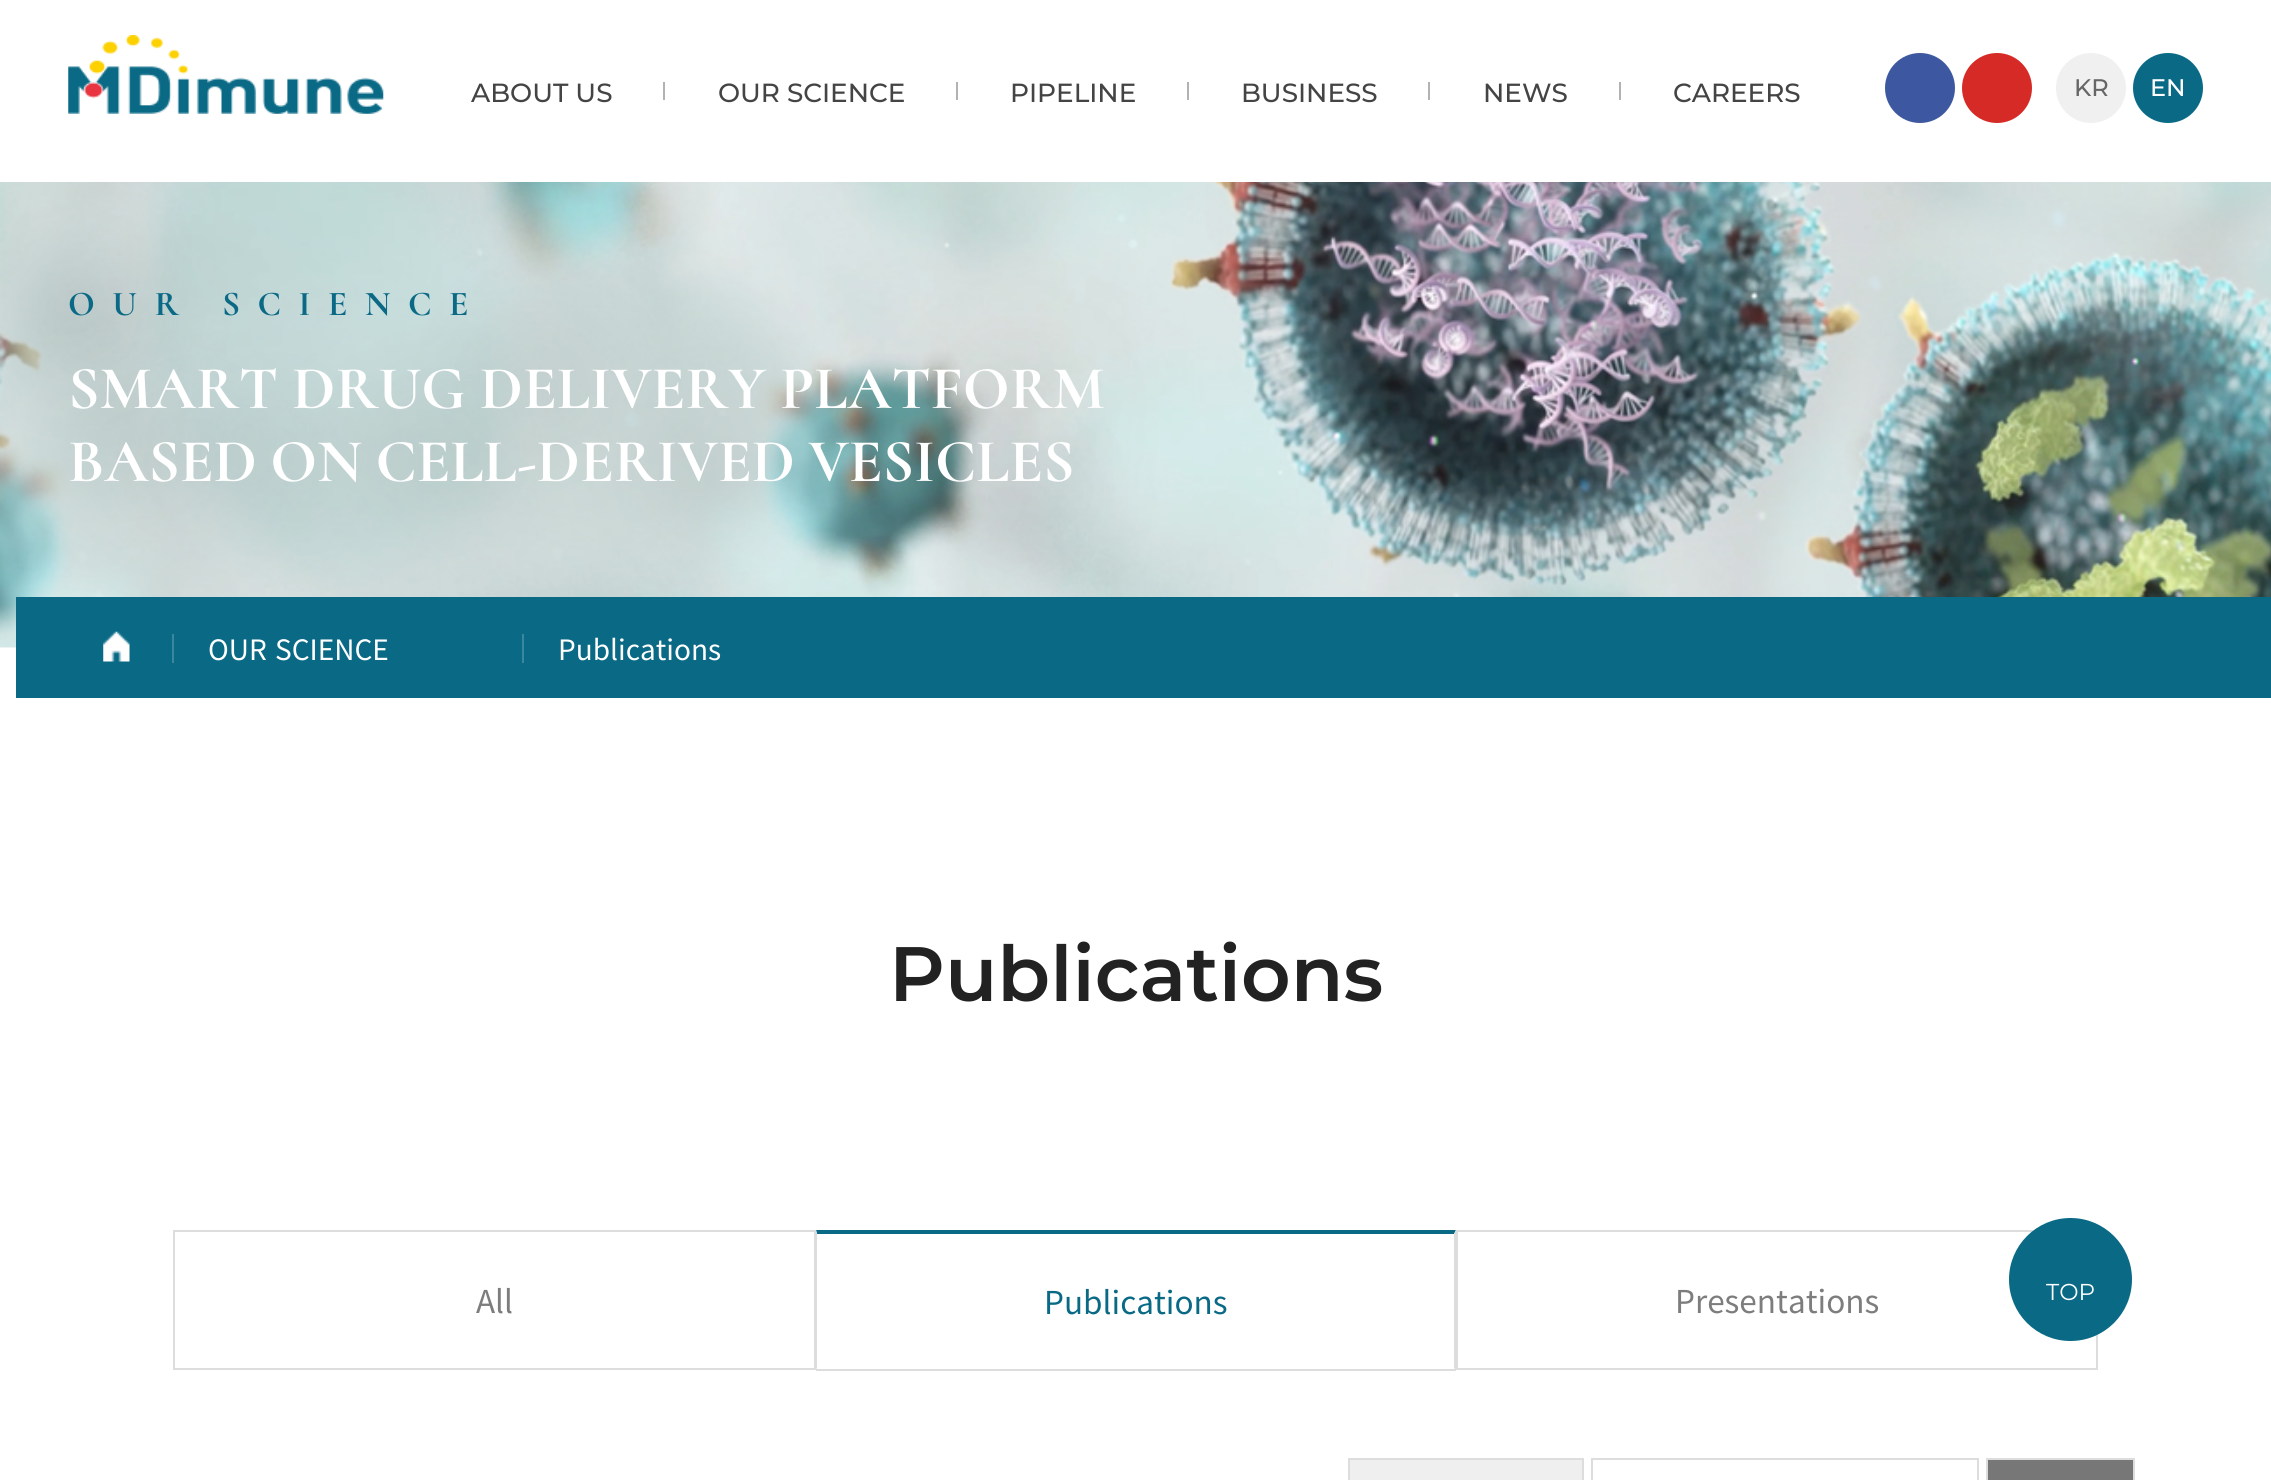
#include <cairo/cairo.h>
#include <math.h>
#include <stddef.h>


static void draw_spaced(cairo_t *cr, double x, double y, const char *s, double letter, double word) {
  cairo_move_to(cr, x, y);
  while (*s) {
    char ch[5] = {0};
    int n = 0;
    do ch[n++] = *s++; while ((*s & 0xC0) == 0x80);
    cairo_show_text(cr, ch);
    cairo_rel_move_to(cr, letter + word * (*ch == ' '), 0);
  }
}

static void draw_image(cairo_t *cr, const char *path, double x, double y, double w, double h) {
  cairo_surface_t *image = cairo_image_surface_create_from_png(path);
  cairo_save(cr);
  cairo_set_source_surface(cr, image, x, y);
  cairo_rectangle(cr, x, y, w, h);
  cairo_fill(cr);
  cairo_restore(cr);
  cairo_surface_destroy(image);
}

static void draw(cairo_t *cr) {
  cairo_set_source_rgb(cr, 1, 1, 1);
  cairo_paint(cr);
  draw_image(cr, "images/1.png", 68, 35, 316, 79);
  cairo_set_source_rgb(cr, 178 / 255.0, 178 / 255.0, 178 / 255.0);
  cairo_rectangle(cr, 663, 82, 2, 18);
  cairo_fill(cr);
  cairo_rectangle(cr, 956, 82, 2, 18);
  cairo_fill(cr);
  cairo_rectangle(cr, 1187, 82, 2, 18);
  cairo_fill(cr);
  cairo_rectangle(cr, 1428, 82, 2, 18);
  cairo_fill(cr);
  cairo_rectangle(cr, 1619, 82, 2, 18);
  cairo_fill(cr);
  cairo_set_source_rgb(cr, 61 / 255.0, 88 / 255.0, 160 / 255.0);
  cairo_arc(cr, 1920, 88, 35, 0, 2 * M_PI);
  cairo_fill(cr);
  cairo_set_source_rgb(cr, 214 / 255.0, 42 / 255.0, 38 / 255.0);
  cairo_arc(cr, 1997, 88, 35, 0, 2 * M_PI);
  cairo_fill(cr);
  cairo_set_source_rgb(cr, 240 / 255.0, 240 / 255.0, 240 / 255.0);
  cairo_arc(cr, 2091, 88, 35, 0, 2 * M_PI);
  cairo_fill(cr);
  cairo_set_source_rgb(cr, 10 / 255.0, 106 / 255.0, 134 / 255.0);
  cairo_arc(cr, 2168, 88, 35, 0, 2 * M_PI);
  cairo_fill(cr);
  draw_image(cr, "images/2.png", 0, 182, 2271, 466);
  cairo_rectangle(cr, 16, 597, 2255, 101);
  cairo_fill(cr);
  draw_image(cr, "images/3.png", 103, 631, 27, 31);
  cairo_set_source_rgb(cr, 59 / 255.0, 136 / 255.0, 158 / 255.0);
  cairo_rectangle(cr, 172, 634, 2, 29);
  cairo_fill(cr);
  cairo_rectangle(cr, 522, 634, 2, 29);
  cairo_fill(cr);
  cairo_rectangle(cr, 174, 1231, 641, 138);
  cairo_set_source_rgb(cr, 221 / 255.0, 221 / 255.0, 221 / 255.0);
  cairo_stroke(cr);
  cairo_set_source_rgb(cr, 10 / 255.0, 106 / 255.0, 134 / 255.0);
  cairo_new_path(cr);
  cairo_move_to(cr, 816, 1230);
  cairo_line_to(cr, 1456, 1230);
  cairo_line_to(cr, 1454, 1234);
  cairo_line_to(cr, 817, 1234);
  cairo_close_path(cr);
  cairo_fill(cr);
  cairo_set_source_rgb(cr, 221 / 255.0, 221 / 255.0, 221 / 255.0);
  cairo_new_path(cr);
  cairo_move_to(cr, 1456, 1230);
  cairo_line_to(cr, 1456, 1370);
  cairo_line_to(cr, 1454, 1368);
  cairo_line_to(cr, 1454, 1234);
  cairo_close_path(cr);
  cairo_fill(cr);
  cairo_rectangle(cr, 816, 1369, 640, 2);
  cairo_fill(cr);
  cairo_new_path(cr);
  cairo_move_to(cr, 816, 1370);
  cairo_line_to(cr, 816, 1230);
  cairo_line_to(cr, 817, 1234);
  cairo_line_to(cr, 817, 1368);
  cairo_close_path(cr);
  cairo_fill(cr);
  cairo_rectangle(cr, 1457, 1231, 640, 138);
  cairo_stroke(cr);
  cairo_set_source_rgb(cr, 239 / 255.0, 239 / 255.0, 239 / 255.0);
  cairo_rectangle(cr, 1349, 1459, 234, 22);
  cairo_fill_preserve(cr);
  cairo_set_source_rgb(cr, 221 / 255.0, 221 / 255.0, 221 / 255.0);
  cairo_stroke(cr);
  cairo_rectangle(cr, 1592, 1459, 386, 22);
  cairo_stroke(cr);
  cairo_set_source_rgb(cr, 119 / 255.0, 119 / 255.0, 119 / 255.0);
  cairo_rectangle(cr, 1987, 1459, 147, 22);
  cairo_fill_preserve(cr);
  cairo_set_source_rgb(cr, 221 / 255.0, 221 / 255.0, 221 / 255.0);
  cairo_stroke(cr);
  cairo_set_source_rgb(cr, 10 / 255.0, 106 / 255.0, 134 / 255.0);
  cairo_arc(cr, 2070.5, 1279.5, 61.5, 0, 2 * M_PI);
  cairo_fill(cr);
  cairo_select_font_face(cr, "Montserrat Medium", CAIRO_FONT_SLANT_NORMAL, CAIRO_FONT_WEIGHT_NORMAL);
  cairo_set_font_size(cr, 26.25);
  cairo_set_source_rgb(cr, 68 / 255.0, 68 / 255.0, 68 / 255.0);
  cairo_move_to(cr, 471, 102);
  cairo_show_text(cr, "ABOUT US");
  cairo_move_to(cr, 718, 102);
  cairo_show_text(cr, "OUR SCIENCE");
  cairo_move_to(cr, 1010, 102);
  cairo_show_text(cr, "PIPELINE");
  cairo_move_to(cr, 1241, 102);
  cairo_show_text(cr, "BUSINESS");
  cairo_move_to(cr, 1483, 102);
  cairo_show_text(cr, "NEWS");
  cairo_move_to(cr, 1673, 102);
  cairo_show_text(cr, "CAREERS");
  cairo_set_font_size(cr, 24);
  cairo_set_source_rgb(cr, 102 / 255.0, 102 / 255.0, 102 / 255.0);
  cairo_move_to(cr, 2074, 96);
  cairo_show_text(cr, "KR");
  cairo_set_source_rgb(cr, 1, 1, 1);
  cairo_move_to(cr, 2150, 96);
  cairo_show_text(cr, "EN");
  cairo_select_font_face(cr, "Cormorant", CAIRO_FONT_SLANT_NORMAL, CAIRO_FONT_WEIGHT_BOLD);
  cairo_set_font_size(cr, 35);
  cairo_set_source_rgb(cr, 10 / 255.0, 106 / 255.0, 134 / 255.0);
  draw_spaced(cr, 68, 315, "OUR SCIENCE", 17.5, 0);
  cairo_set_font_size(cr, 61.25);
  cairo_set_source_rgb(cr, 1, 1, 1);
  cairo_move_to(cr, 68, 408);
  cairo_show_text(cr, "SMART DRUG DELIVERY PLATFORM");
  draw_spaced(cr, 68, 481, "BASED ON CELL-DERIVED VESICLES", 0, -1);
  cairo_select_font_face(cr, "Noto Sans KR", CAIRO_FONT_SLANT_NORMAL, CAIRO_FONT_WEIGHT_NORMAL);
  cairo_set_font_size(cr, 28);
  draw_spaced(cr, 208, 660, "OUR SCIENCE", 0, 2);
  cairo_move_to(cr, 558, 660);
  cairo_show_text(cr, "Publications");
  cairo_select_font_face(cr, "Montserrat SemiBold", CAIRO_FONT_SLANT_NORMAL, CAIRO_FONT_WEIGHT_NORMAL);
  cairo_set_font_size(cr, 77);
  cairo_set_source_rgb(cr, 34 / 255.0, 34 / 255.0, 34 / 255.0);
  cairo_move_to(cr, 889, 1001);
  cairo_show_text(cr, "Publications");
  cairo_select_font_face(cr, "Noto Sans KR", CAIRO_FONT_SLANT_NORMAL, CAIRO_FONT_WEIGHT_NORMAL);
  cairo_set_font_size(cr, 31.5);
  cairo_set_source_rgb(cr, 125 / 255.0, 125 / 255.0, 125 / 255.0);
  cairo_move_to(cr, 476, 1313);
  cairo_show_text(cr, "All");
  cairo_set_source_rgb(cr, 10 / 255.0, 106 / 255.0, 134 / 255.0);
  cairo_move_to(cr, 1044, 1314);
  cairo_show_text(cr, "Publications");
  cairo_set_source_rgb(cr, 125 / 255.0, 125 / 255.0, 125 / 255.0);
  cairo_move_to(cr, 1675, 1313);
  cairo_show_text(cr, "Presentations");
  cairo_select_font_face(cr, "Montserrat", CAIRO_FONT_SLANT_NORMAL, CAIRO_FONT_WEIGHT_NORMAL);
  cairo_set_font_size(cr, 23);
  cairo_set_source_rgb(cr, 1, 1, 1);
  cairo_move_to(cr, 2046, 1300);
  cairo_show_text(cr, "TOP");
}

int main(void) {
  cairo_surface_t *surface = cairo_image_surface_create(CAIRO_FORMAT_RGB24, 2271, 1480);
  cairo_t *cr = cairo_create(surface);
  cairo_font_options_t *options = cairo_font_options_create();
  cairo_font_options_set_hint_metrics(options, CAIRO_HINT_METRICS_OFF);
  cairo_font_options_set_hint_style(options, CAIRO_HINT_STYLE_NONE);
  cairo_set_font_options(cr, options);
  cairo_set_miter_limit(cr, 4);
  draw(cr);
  cairo_surface_write_to_png(surface, "out.png");
  cairo_font_options_destroy(options);
  cairo_destroy(cr);
  cairo_surface_destroy(surface);
  return 0;
}
